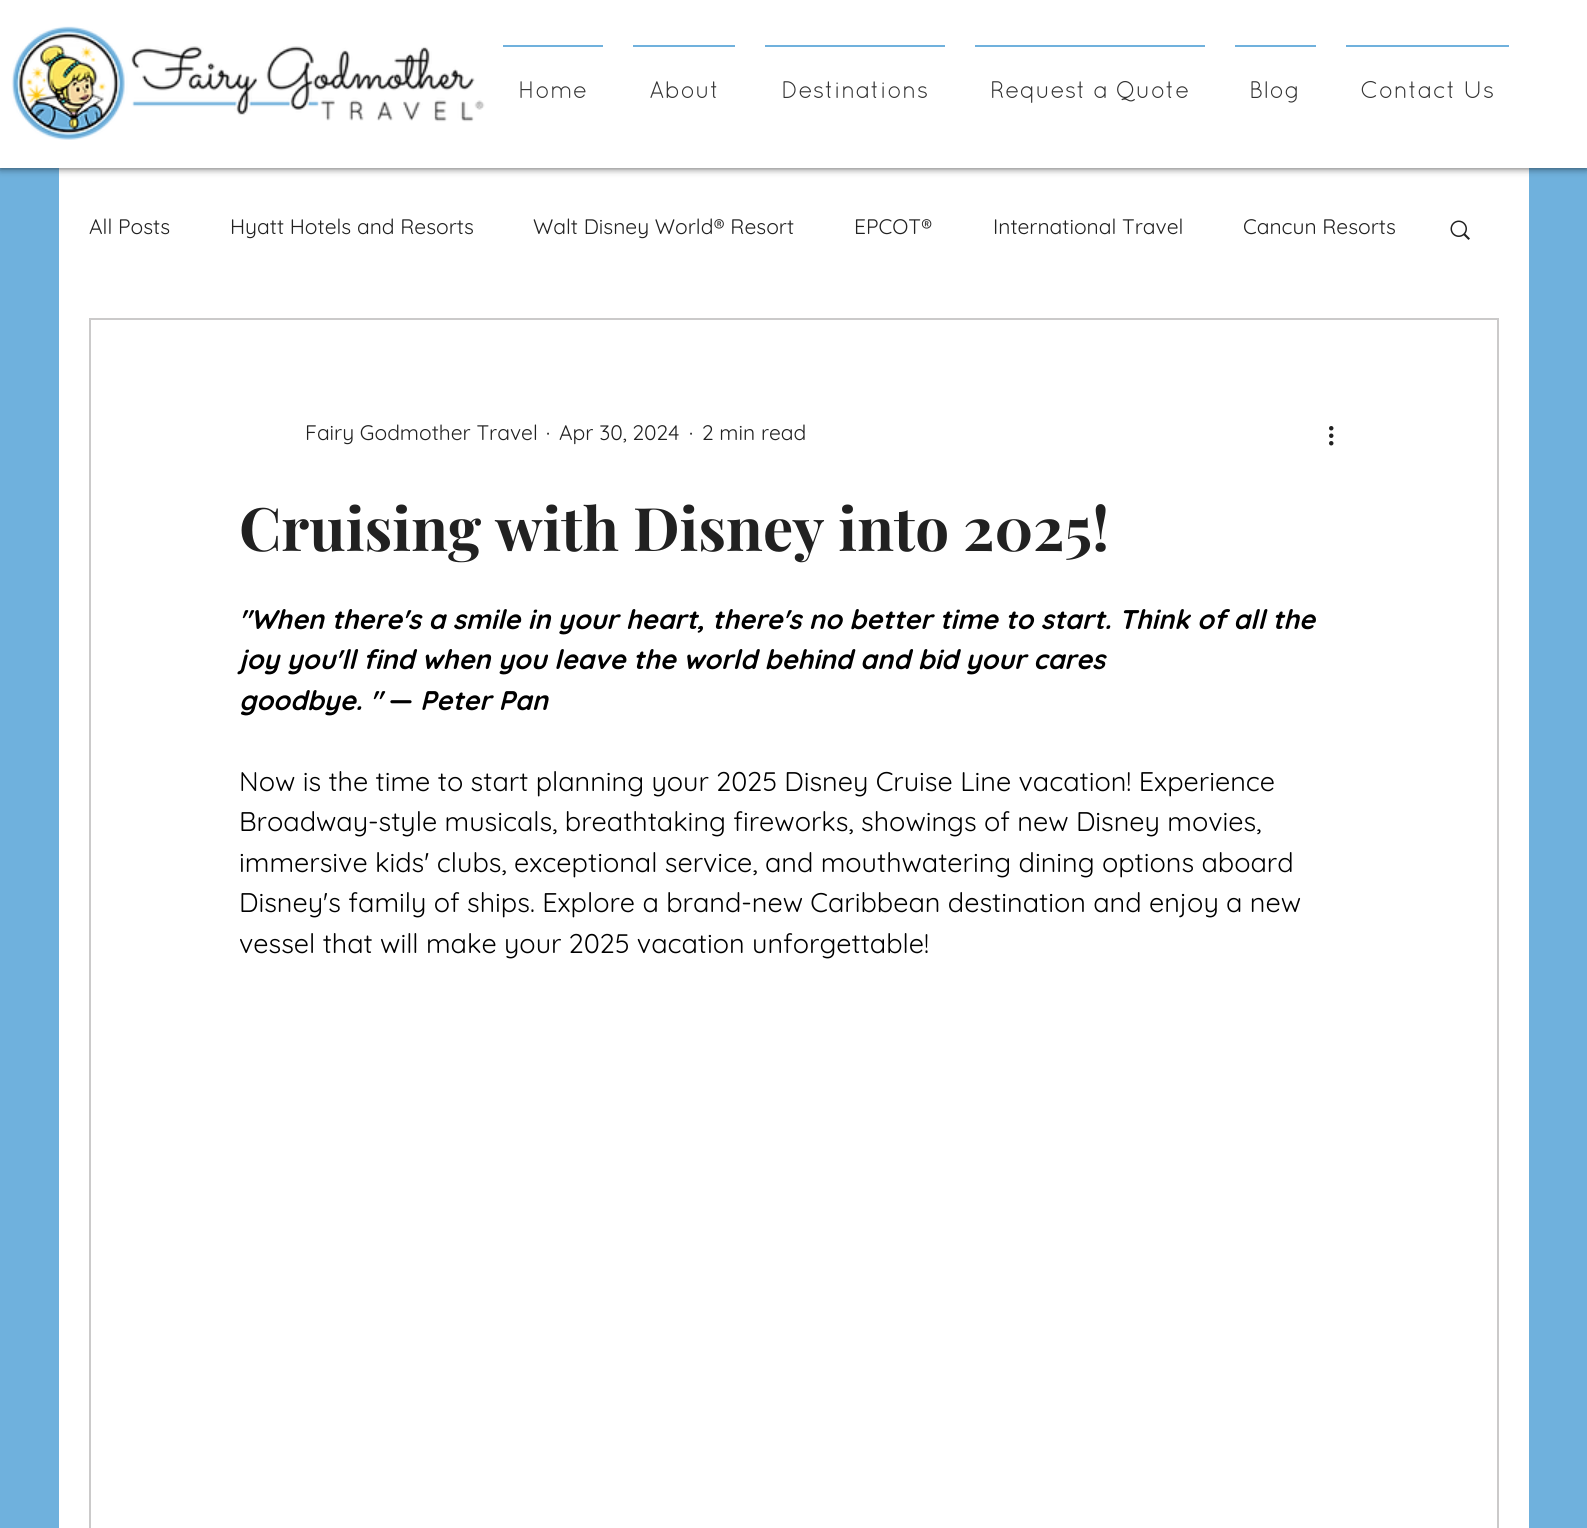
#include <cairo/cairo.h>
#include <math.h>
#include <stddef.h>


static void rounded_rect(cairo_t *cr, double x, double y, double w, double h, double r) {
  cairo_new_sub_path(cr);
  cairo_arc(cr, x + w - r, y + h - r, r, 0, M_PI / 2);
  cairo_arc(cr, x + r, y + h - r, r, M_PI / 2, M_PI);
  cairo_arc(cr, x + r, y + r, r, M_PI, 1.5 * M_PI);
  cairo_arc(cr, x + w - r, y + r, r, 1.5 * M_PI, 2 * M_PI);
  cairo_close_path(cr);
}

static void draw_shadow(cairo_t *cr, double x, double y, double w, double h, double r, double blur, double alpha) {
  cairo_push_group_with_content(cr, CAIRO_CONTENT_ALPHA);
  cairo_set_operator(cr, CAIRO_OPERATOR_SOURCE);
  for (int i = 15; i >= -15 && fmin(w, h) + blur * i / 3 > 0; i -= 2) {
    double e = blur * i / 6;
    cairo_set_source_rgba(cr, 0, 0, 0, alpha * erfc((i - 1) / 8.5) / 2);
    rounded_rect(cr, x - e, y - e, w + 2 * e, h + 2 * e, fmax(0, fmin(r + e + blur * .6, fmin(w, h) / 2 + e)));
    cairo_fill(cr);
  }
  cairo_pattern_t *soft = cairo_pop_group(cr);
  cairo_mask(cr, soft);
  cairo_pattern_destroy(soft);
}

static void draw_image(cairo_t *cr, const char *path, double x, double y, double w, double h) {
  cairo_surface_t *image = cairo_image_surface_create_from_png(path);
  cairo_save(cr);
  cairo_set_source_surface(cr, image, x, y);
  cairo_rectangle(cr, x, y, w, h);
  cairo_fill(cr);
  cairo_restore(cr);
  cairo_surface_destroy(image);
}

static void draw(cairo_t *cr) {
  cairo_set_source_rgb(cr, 111 / 255.0, 177 / 255.0, 221 / 255.0);
  cairo_paint(cr);
  cairo_set_source_rgb(cr, 1, 1, 1);
  cairo_rectangle(cr, 59, 168, 1470, 1360);
  cairo_fill(cr);
  cairo_set_source_rgb(cr, 0, 0, 0);
  draw_shadow(cr, 0, 0, 1587, 168, 0, 4, 0.7);
  cairo_set_source_rgb(cr, 1, 1, 1);
  cairo_rectangle(cr, 0, 0, 1587, 168);
  cairo_fill(cr);
  draw_image(cr, "images/1.png", 11, 26, 474, 114);
  cairo_set_source_rgb(cr, 112 / 255.0, 177 / 255.0, 221 / 255.0);
  cairo_rectangle(cr, 503, 45, 100, 2);
  cairo_fill(cr);
  cairo_rectangle(cr, 633, 45, 102, 2);
  cairo_fill(cr);
  cairo_rectangle(cr, 765, 45, 180, 2);
  cairo_fill(cr);
  cairo_rectangle(cr, 975, 45, 230, 2);
  cairo_fill(cr);
  cairo_rectangle(cr, 1235, 45, 81, 2);
  cairo_fill(cr);
  cairo_rectangle(cr, 1346, 45, 163, 2);
  cairo_fill(cr);
  draw_image(cr, "images/2.png", 1450, 220, 20, 20);
  cairo_rectangle(cr, 90, 319, 1408, 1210);
  cairo_set_source_rgb(cr, 203 / 255.0, 202 / 255.0, 202 / 255.0);
  cairo_stroke(cr);
  draw_image(cr, "images/3.png", 1329, 426, 5, 20);
  cairo_select_font_face(cr, "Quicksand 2", CAIRO_FONT_SLANT_NORMAL, CAIRO_FONT_WEIGHT_NORMAL);
  cairo_set_font_size(cr, 24);
  cairo_set_source_rgb(cr, 51 / 255.0, 51 / 255.0, 51 / 255.0);
  cairo_move_to(cr, 518, 98);
  cairo_show_text(cr, "Home");
  cairo_move_to(cr, 649, 98);
  cairo_show_text(cr, "About");
  cairo_move_to(cr, 781, 98);
  cairo_show_text(cr, "Destinations");
  cairo_move_to(cr, 990, 98);
  cairo_show_text(cr, "Request a Quote");
  cairo_move_to(cr, 1249, 98);
  cairo_show_text(cr, "Blog");
  cairo_move_to(cr, 1360, 98);
  cairo_show_text(cr, "Contact Us");
  cairo_select_font_face(cr, "Quicksand", CAIRO_FONT_SLANT_NORMAL, CAIRO_FONT_WEIGHT_NORMAL);
  cairo_set_font_size(cr, 21);
  cairo_set_source_rgb(cr, 33 / 255.0, 33 / 255.0, 33 / 255.0);
  cairo_move_to(cr, 89, 234);
  cairo_show_text(cr, "All Posts");
  cairo_move_to(cr, 230, 234);
  cairo_show_text(cr, "Hyatt Hotels and Resorts");
  cairo_move_to(cr, 533, 234);
  cairo_show_text(cr, "Walt Disney World® Resort");
  cairo_move_to(cr, 854, 234);
  cairo_show_text(cr, "EPCOT®");
  cairo_move_to(cr, 993, 234);
  cairo_show_text(cr, "International Travel");
  cairo_move_to(cr, 1243, 234);
  cairo_show_text(cr, "Cancun Resorts");
  cairo_move_to(cr, 305, 440);
  cairo_show_text(cr, "Fairy Godmother Travel");
  cairo_move_to(cr, 546, 440);
  cairo_show_text(cr, "·");
  cairo_move_to(cr, 559, 440);
  cairo_show_text(cr, "Apr 30, 2024");
  cairo_move_to(cr, 689, 440);
  cairo_show_text(cr, "·");
  cairo_move_to(cr, 702, 440);
  cairo_show_text(cr, "2 min read");
  cairo_select_font_face(cr, "Playfair Display", CAIRO_FONT_SLANT_NORMAL, CAIRO_FONT_WEIGHT_BOLD);
  cairo_set_font_size(cr, 60);
  cairo_move_to(cr, 239, 551);
  cairo_show_text(cr, "Cruising with Disney into 2025!");
  cairo_select_font_face(cr, "Quicksand", CAIRO_FONT_SLANT_ITALIC, CAIRO_FONT_WEIGHT_BOLD);
  cairo_set_font_size(cr, 27);
  cairo_set_source_rgb(cr, 0, 0, 0);
  cairo_move_to(cr, 239, 629);
  cairo_show_text(cr, "\"When there's a smile in your heart, there's no better time to start. Think of all the");
  cairo_move_to(cr, 239, 669);
  cairo_show_text(cr, "joy you'll find when you leave the world behind and bid your cares");
  cairo_move_to(cr, 239, 710);
  cairo_show_text(cr, "goodbye. \"");
  cairo_select_font_face(cr, "Quicksand", CAIRO_FONT_SLANT_NORMAL, CAIRO_FONT_WEIGHT_BOLD);
  cairo_move_to(cr, 389, 710);
  cairo_show_text(cr, "—");
  cairo_select_font_face(cr, "Quicksand", CAIRO_FONT_SLANT_ITALIC, CAIRO_FONT_WEIGHT_BOLD);
  cairo_move_to(cr, 420, 710);
  cairo_show_text(cr, "Peter Pan");
  cairo_select_font_face(cr, "Quicksand", CAIRO_FONT_SLANT_NORMAL, CAIRO_FONT_WEIGHT_NORMAL);
  cairo_move_to(cr, 239, 791);
  cairo_show_text(cr, "Now is the time to start planning your 2025 Disney Cruise Line vacation! Experience");
  cairo_move_to(cr, 239, 831);
  cairo_show_text(cr, "Broadway-style musicals, breathtaking fireworks, showings of new Disney movies,");
  cairo_move_to(cr, 239, 872);
  cairo_show_text(cr, "immersive kids' clubs, exceptional service, and mouthwatering dining options aboard");
  cairo_move_to(cr, 239, 912);
  cairo_show_text(cr, "Disney's family of ships. Explore a brand-new Caribbean destination and enjoy a new");
  cairo_move_to(cr, 239, 953);
  cairo_show_text(cr, "vessel that will make your 2025 vacation unforgettable!");
}

int main(void) {
  cairo_surface_t *surface = cairo_image_surface_create(CAIRO_FORMAT_RGB24, 1587, 1528);
  cairo_t *cr = cairo_create(surface);
  cairo_font_options_t *options = cairo_font_options_create();
  cairo_font_options_set_hint_metrics(options, CAIRO_HINT_METRICS_OFF);
  cairo_font_options_set_hint_style(options, CAIRO_HINT_STYLE_NONE);
  cairo_set_font_options(cr, options);
  cairo_set_miter_limit(cr, 4);
  draw(cr);
  cairo_surface_write_to_png(surface, "out.png");
  cairo_font_options_destroy(options);
  cairo_destroy(cr);
  cairo_surface_destroy(surface);
  return 0;
}
